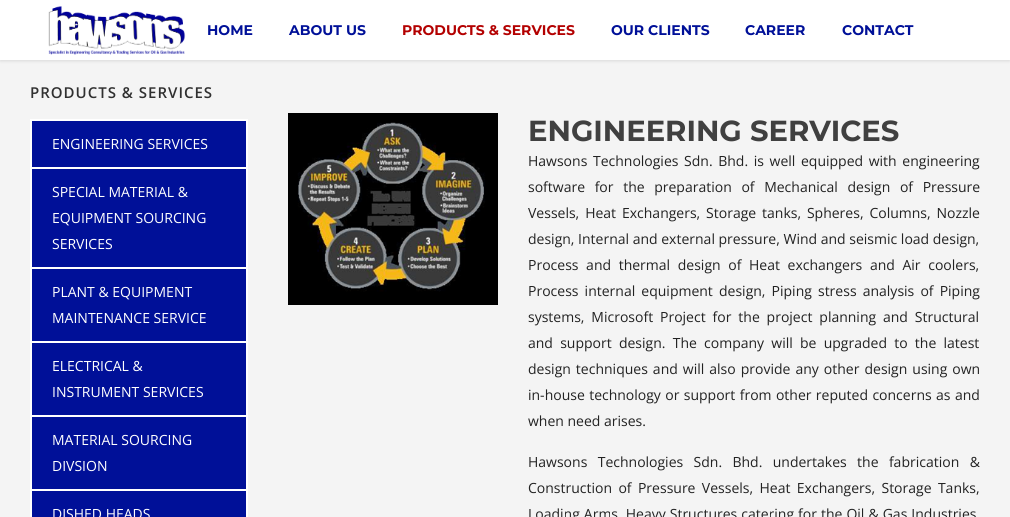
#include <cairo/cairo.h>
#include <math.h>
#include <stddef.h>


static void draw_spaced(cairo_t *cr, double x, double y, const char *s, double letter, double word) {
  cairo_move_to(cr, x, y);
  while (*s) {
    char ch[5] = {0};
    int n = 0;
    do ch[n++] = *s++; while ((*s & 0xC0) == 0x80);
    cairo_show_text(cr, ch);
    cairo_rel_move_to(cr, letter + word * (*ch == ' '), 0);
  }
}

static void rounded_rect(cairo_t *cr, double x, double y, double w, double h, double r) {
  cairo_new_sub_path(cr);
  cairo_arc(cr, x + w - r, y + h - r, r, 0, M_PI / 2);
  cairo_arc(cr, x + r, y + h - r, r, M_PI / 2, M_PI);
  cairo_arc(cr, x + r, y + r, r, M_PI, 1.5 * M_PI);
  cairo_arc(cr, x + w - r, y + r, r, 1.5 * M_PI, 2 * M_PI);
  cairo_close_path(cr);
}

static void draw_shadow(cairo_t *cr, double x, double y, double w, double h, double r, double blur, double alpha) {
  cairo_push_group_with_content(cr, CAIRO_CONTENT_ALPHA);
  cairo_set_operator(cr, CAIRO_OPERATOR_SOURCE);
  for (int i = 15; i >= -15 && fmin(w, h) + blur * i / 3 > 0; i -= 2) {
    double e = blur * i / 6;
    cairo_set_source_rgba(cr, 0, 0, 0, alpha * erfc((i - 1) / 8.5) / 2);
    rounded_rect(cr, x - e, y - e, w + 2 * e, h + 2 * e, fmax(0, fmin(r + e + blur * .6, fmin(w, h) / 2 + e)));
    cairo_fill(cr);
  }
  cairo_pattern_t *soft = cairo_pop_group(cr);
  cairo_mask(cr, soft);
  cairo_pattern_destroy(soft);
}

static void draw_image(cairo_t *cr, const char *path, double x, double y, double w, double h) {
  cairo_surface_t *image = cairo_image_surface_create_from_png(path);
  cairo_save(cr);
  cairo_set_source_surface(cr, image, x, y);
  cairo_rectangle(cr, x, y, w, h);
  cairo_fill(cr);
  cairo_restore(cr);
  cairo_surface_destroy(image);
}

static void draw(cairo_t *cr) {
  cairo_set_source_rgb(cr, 244 / 255.0, 244 / 255.0, 244 / 255.0);
  cairo_paint(cr);
  cairo_set_source_rgb(cr, 0, 0, 0);
  draw_shadow(cr, 0, 1, 1010, 60, 0, 1.5, 0.11);
  cairo_set_source_rgb(cr, 1, 1, 1);
  cairo_rectangle(cr, 0, 0, 1010, 60);
  cairo_fill(cr);
  draw_image(cr, "images/1.png", 48, 6, 138, 49);
  cairo_set_source_rgb(cr, 0, 16 / 255.0, 152 / 255.0);
  cairo_rectangle(cr, 32, 121, 214, 396);
  cairo_fill(cr);
  cairo_rectangle(cr, 30.5, 119.5, 217, 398);
  cairo_set_source_rgb(cr, 1, 1, 1);
  cairo_set_line_width(cr, 1);
  cairo_stroke(cr);
  cairo_rectangle(cr, 31.5, 120.5, 215, 47);
  cairo_stroke(cr);
  cairo_rectangle(cr, 31.5, 168.5, 215, 99);
  cairo_stroke(cr);
  cairo_rectangle(cr, 31.5, 268.5, 215, 73);
  cairo_stroke(cr);
  cairo_rectangle(cr, 31.5, 342.5, 215, 73);
  cairo_stroke(cr);
  cairo_rectangle(cr, 31.5, 416.5, 215, 73);
  cairo_stroke(cr);
  cairo_rectangle(cr, 31.5, 490.5, 215, 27);
  cairo_stroke(cr);
  draw_image(cr, "images/2.png", 288, 113, 210, 192);
  cairo_select_font_face(cr, "Montserrat", CAIRO_FONT_SLANT_NORMAL, CAIRO_FONT_WEIGHT_BOLD);
  cairo_set_font_size(cr, 14);
  cairo_set_source_rgb(cr, 0, 16 / 255.0, 152 / 255.0);
  cairo_move_to(cr, 207, 35);
  cairo_show_text(cr, "HOME");
  cairo_move_to(cr, 289, 35);
  cairo_show_text(cr, "ABOUT US");
  cairo_set_source_rgb(cr, 179 / 255.0, 0, 0);
  cairo_move_to(cr, 402, 35);
  cairo_show_text(cr, "PRODUCTS & SERVICES");
  cairo_set_source_rgb(cr, 0, 16 / 255.0, 152 / 255.0);
  cairo_move_to(cr, 611, 35);
  cairo_show_text(cr, "OUR CLIENTS");
  cairo_move_to(cr, 745, 35);
  cairo_show_text(cr, "CAREER");
  cairo_move_to(cr, 842, 35);
  cairo_show_text(cr, "CONTACT");
  cairo_select_font_face(cr, "Open Sans SemiBold", CAIRO_FONT_SLANT_NORMAL, CAIRO_FONT_WEIGHT_NORMAL);
  cairo_set_font_size(cr, 15);
  cairo_set_source_rgb(cr, 48 / 255.0, 48 / 255.0, 48 / 255.0);
  draw_spaced(cr, 30, 98, "PRODUCTS & SERVICES", 1, 0);
  cairo_select_font_face(cr, "Open Sans", CAIRO_FONT_SLANT_NORMAL, CAIRO_FONT_WEIGHT_NORMAL);
  cairo_set_font_size(cr, 14);
  cairo_set_source_rgb(cr, 1, 1, 1);
  cairo_move_to(cr, 52, 149);
  cairo_show_text(cr, "ENGINEERING SERVICES");
  cairo_move_to(cr, 52, 197);
  cairo_show_text(cr, "SPECIAL MATERIAL &");
  cairo_move_to(cr, 52, 223);
  cairo_show_text(cr, "EQUIPMENT SOURCING");
  cairo_move_to(cr, 52, 249);
  cairo_show_text(cr, "SERVICES");
  cairo_move_to(cr, 52, 297);
  cairo_show_text(cr, "PLANT & EQUIPMENT");
  cairo_move_to(cr, 52, 323);
  cairo_show_text(cr, "MAINTENANCE SERVICE");
  cairo_move_to(cr, 52, 371);
  cairo_show_text(cr, "ELECTRICAL &");
  cairo_move_to(cr, 52, 397);
  cairo_show_text(cr, "INSTRUMENT SERVICES");
  cairo_move_to(cr, 52, 445);
  cairo_show_text(cr, "MATERIAL SOURCING");
  cairo_move_to(cr, 52, 471);
  cairo_show_text(cr, "DIVSION");
  cairo_move_to(cr, 52, 519);
  cairo_show_text(cr, "DISHED HEADS");
  cairo_select_font_face(cr, "Montserrat", CAIRO_FONT_SLANT_NORMAL, CAIRO_FONT_WEIGHT_BOLD);
  cairo_set_font_size(cr, 29);
  cairo_set_source_rgb(cr, 64 / 255.0, 64 / 255.0, 64 / 255.0);
  cairo_move_to(cr, 528, 141);
  cairo_show_text(cr, "ENGINEERING SERVICES");
  cairo_select_font_face(cr, "Open Sans", CAIRO_FONT_SLANT_NORMAL, CAIRO_FONT_WEIGHT_NORMAL);
  cairo_set_font_size(cr, 14);
  cairo_set_source_rgb(cr, 34 / 255.0, 34 / 255.0, 34 / 255.0);
  draw_spaced(cr, 528, 166, "Hawsons Technologies Sdn. Bhd. is well equipped with engineering", 0, 2);
  draw_spaced(cr, 528, 192, "software for the preparation of Mechanical design of Pressure", 0, 6);
  draw_spaced(cr, 528, 218, "Vessels, Heat Exchangers, Storage tanks, Spheres, Columns, Nozzle", 0, 2.25);
  cairo_move_to(cr, 528, 244);
  cairo_show_text(cr, "design, Internal and external pressure, Wind and seismic load design,");
  draw_spaced(cr, 528, 270, "Process and thermal design of Heat exchangers and Air coolers,", 0, 4);
  draw_spaced(cr, 528, 296, "Process internal equipment design, Piping stress analysis of Piping", 0, 2.5);
  draw_spaced(cr, 528, 322, "systems, Microsoft Project for the project planning and Structural", 0, 3.25);
  draw_spaced(cr, 528, 348, "and support design. The company will be upgraded to the latest", 0, 3.6);
  draw_spaced(cr, 528, 374, "design techniques and will also provide any other design using own", 0, 1.4);
  draw_spaced(cr, 528, 400, "in-house technology or support from other reputed concerns as and", 0, 0.75);
  cairo_move_to(cr, 528, 426);
  cairo_show_text(cr, "when need arises.");
  draw_spaced(cr, 528, 467, "Hawsons Technologies Sdn. Bhd. undertakes the fabrication &", 0, 6.75);
  draw_spaced(cr, 528, 493, "Construction of Pressure Vessels, Heat Exchangers, Storage Tanks,", 0, 2.75);
  draw_spaced(cr, 528, 519, "Loading Arms, Heavy Structures catering for the Oil & Gas Industries", 0, 0.4);
}

int main(void) {
  cairo_surface_t *surface = cairo_image_surface_create(CAIRO_FORMAT_RGB24, 1010, 517);
  cairo_t *cr = cairo_create(surface);
  cairo_font_options_t *options = cairo_font_options_create();
  cairo_font_options_set_hint_metrics(options, CAIRO_HINT_METRICS_OFF);
  cairo_font_options_set_hint_style(options, CAIRO_HINT_STYLE_NONE);
  cairo_set_font_options(cr, options);
  cairo_set_miter_limit(cr, 4);
  draw(cr);
  cairo_surface_write_to_png(surface, "out.png");
  cairo_font_options_destroy(options);
  cairo_destroy(cr);
  cairo_surface_destroy(surface);
  return 0;
}
